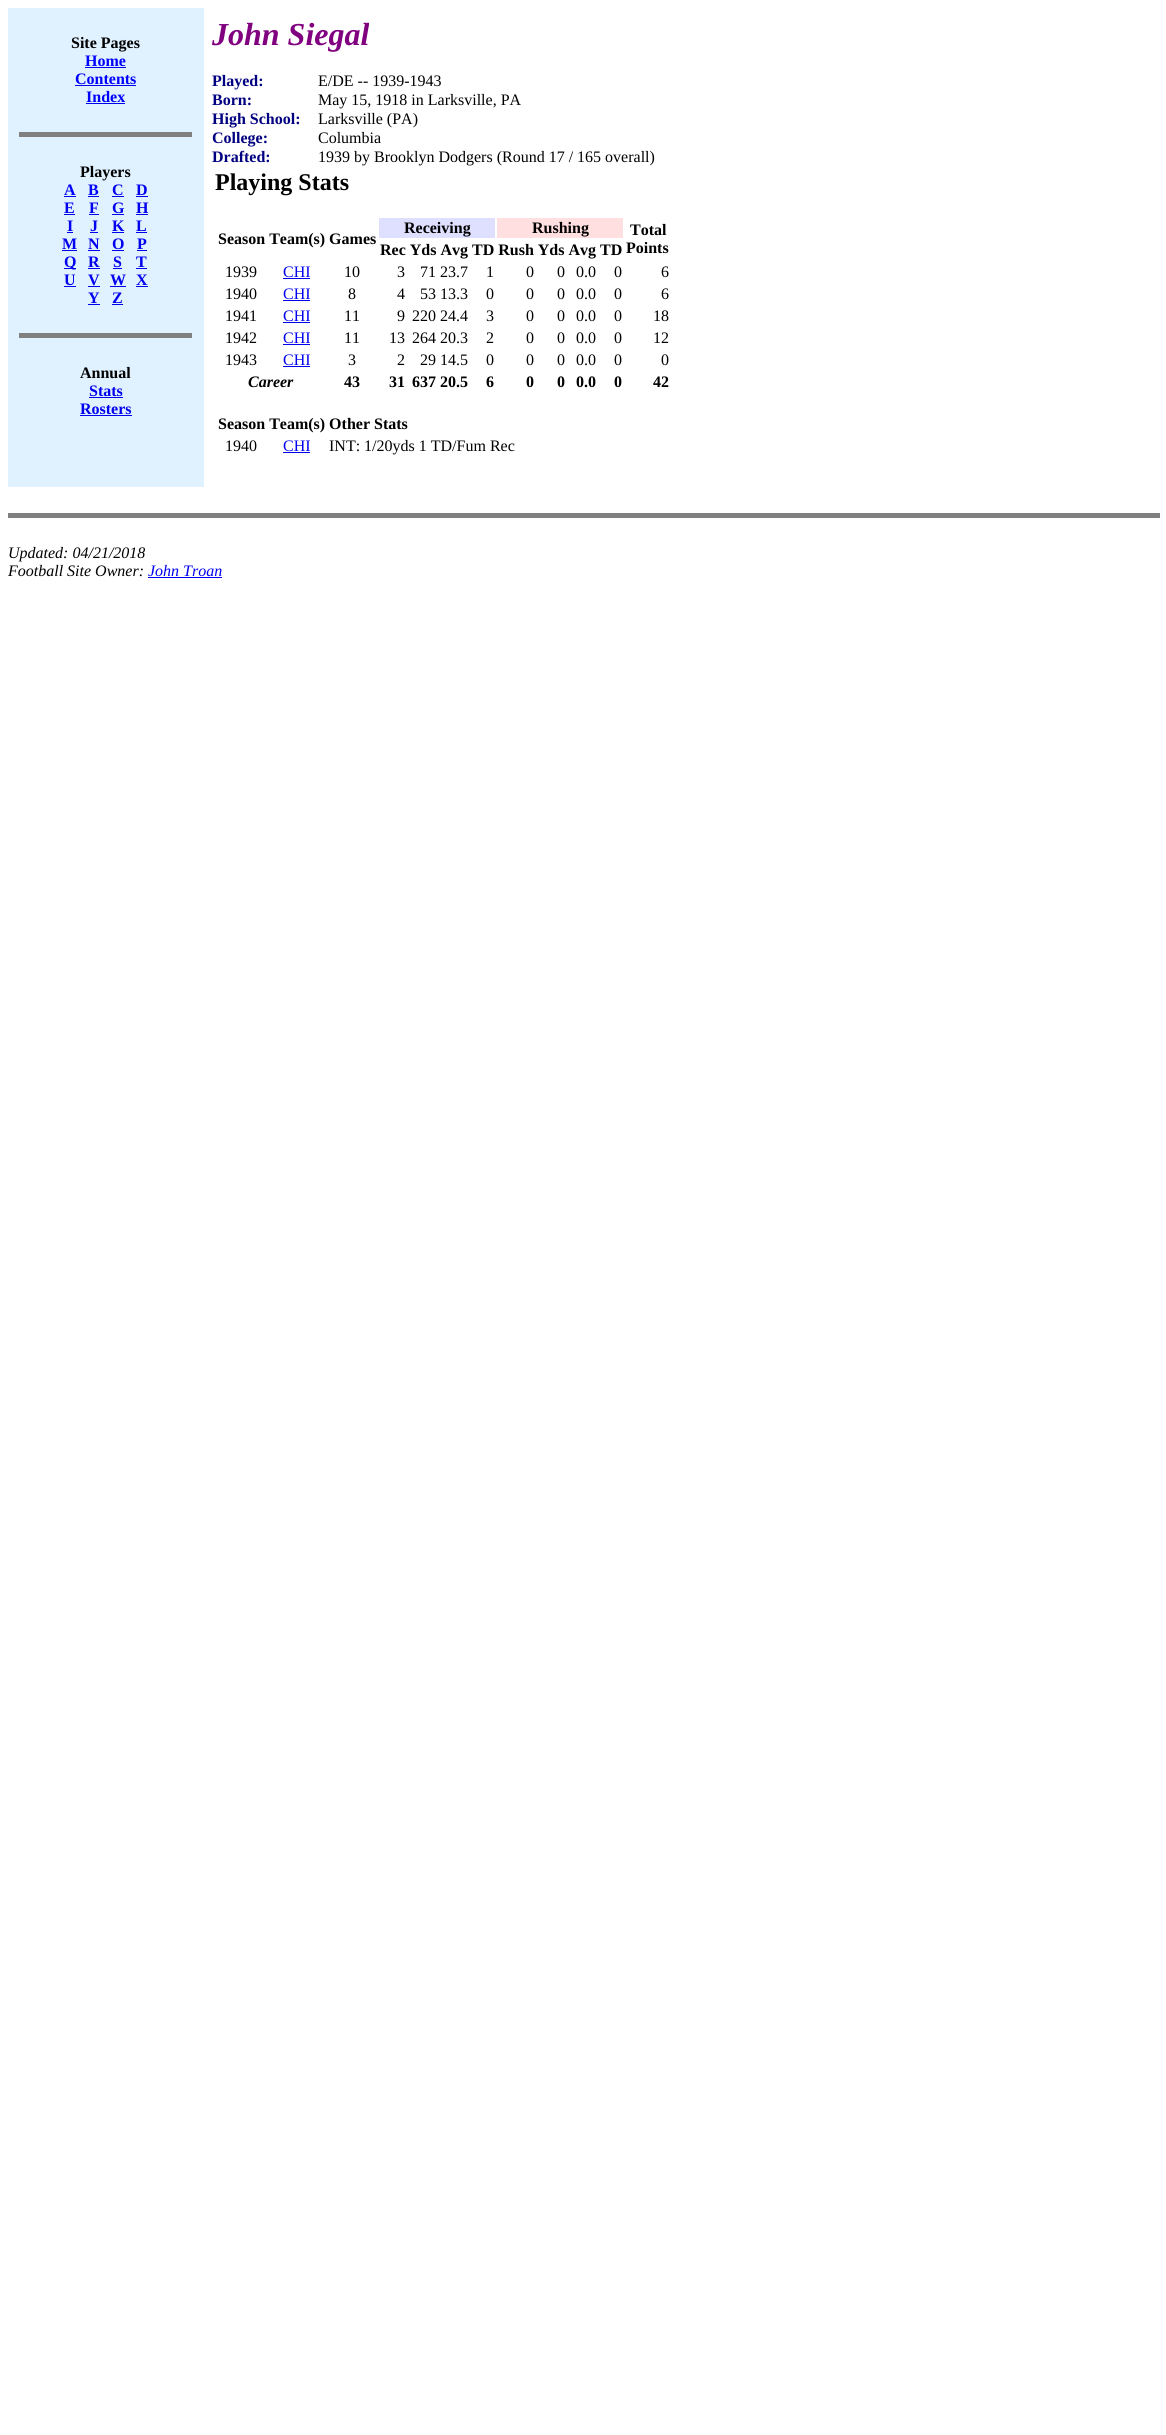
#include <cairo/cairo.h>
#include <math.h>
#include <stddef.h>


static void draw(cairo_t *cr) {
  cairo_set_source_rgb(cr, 1, 1, 1);
  cairo_paint(cr);
  cairo_set_source_rgb(cr, 224 / 255.0, 241 / 255.0, 1);
  cairo_rectangle(cr, 8, 8, 196, 479);
  cairo_fill(cr);
  cairo_set_source_rgb(cr, 0, 0, 238 / 255.0);
  cairo_rectangle(cr, 85, 67, 41, 1);
  cairo_fill(cr);
  cairo_rectangle(cr, 75, 85, 61, 1);
  cairo_fill(cr);
  cairo_rectangle(cr, 86, 103, 39, 1);
  cairo_fill(cr);
  cairo_set_source_rgb(cr, 128 / 255.0, 128 / 255.0, 128 / 255.0);
  cairo_rectangle(cr, 19, 132, 173, 5);
  cairo_fill(cr);
  cairo_set_source_rgb(cr, 0, 0, 238 / 255.0);
  cairo_rectangle(cr, 64, 196, 12, 1);
  cairo_fill(cr);
  cairo_rectangle(cr, 88, 196, 11, 1);
  cairo_fill(cr);
  cairo_rectangle(cr, 112, 196, 12, 1);
  cairo_fill(cr);
  cairo_rectangle(cr, 136, 196, 12, 1);
  cairo_fill(cr);
  cairo_rectangle(cr, 64, 214, 11, 1);
  cairo_fill(cr);
  cairo_rectangle(cr, 89, 214, 10, 1);
  cairo_fill(cr);
  cairo_rectangle(cr, 112, 214, 12, 1);
  cairo_fill(cr);
  cairo_rectangle(cr, 136, 214, 12, 1);
  cairo_fill(cr);
  cairo_rectangle(cr, 67, 232, 6, 1);
  cairo_fill(cr);
  cairo_rectangle(cr, 90, 232, 8, 1);
  cairo_fill(cr);
  cairo_rectangle(cr, 112, 232, 12, 1);
  cairo_fill(cr);
  cairo_rectangle(cr, 136, 232, 11, 1);
  cairo_fill(cr);
  cairo_rectangle(cr, 62, 250, 15, 1);
  cairo_fill(cr);
  cairo_rectangle(cr, 88, 250, 12, 1);
  cairo_fill(cr);
  cairo_rectangle(cr, 112, 250, 12, 1);
  cairo_fill(cr);
  cairo_rectangle(cr, 137, 250, 10, 1);
  cairo_fill(cr);
  cairo_rectangle(cr, 64, 268, 12, 1);
  cairo_fill(cr);
  cairo_rectangle(cr, 88, 268, 12, 1);
  cairo_fill(cr);
  cairo_rectangle(cr, 113, 268, 9, 1);
  cairo_fill(cr);
  cairo_rectangle(cr, 136, 268, 11, 1);
  cairo_fill(cr);
  cairo_rectangle(cr, 64, 286, 12, 1);
  cairo_fill(cr);
  cairo_rectangle(cr, 88, 286, 12, 1);
  cairo_fill(cr);
  cairo_rectangle(cr, 110, 286, 16, 1);
  cairo_fill(cr);
  cairo_rectangle(cr, 136, 286, 12, 1);
  cairo_fill(cr);
  cairo_rectangle(cr, 88, 304, 12, 1);
  cairo_fill(cr);
  cairo_rectangle(cr, 112, 304, 11, 1);
  cairo_fill(cr);
  cairo_set_source_rgb(cr, 128 / 255.0, 128 / 255.0, 128 / 255.0);
  cairo_rectangle(cr, 19, 333, 173, 5);
  cairo_fill(cr);
  cairo_set_source_rgb(cr, 0, 0, 238 / 255.0);
  cairo_rectangle(cr, 89, 397, 34, 1);
  cairo_fill(cr);
  cairo_rectangle(cr, 80, 415, 52, 1);
  cairo_fill(cr);
  cairo_set_source_rgb(cr, 223 / 255.0, 223 / 255.0, 1);
  cairo_rectangle(cr, 379, 218, 116, 20);
  cairo_fill(cr);
  cairo_set_source_rgb(cr, 1, 223 / 255.0, 223 / 255.0);
  cairo_rectangle(cr, 497, 218, 126, 20);
  cairo_fill(cr);
  cairo_set_source_rgb(cr, 0, 0, 238 / 255.0);
  cairo_rectangle(cr, 283, 278, 27, 1);
  cairo_fill(cr);
  cairo_rectangle(cr, 283, 300, 27, 1);
  cairo_fill(cr);
  cairo_rectangle(cr, 283, 322, 27, 1);
  cairo_fill(cr);
  cairo_rectangle(cr, 283, 344, 27, 1);
  cairo_fill(cr);
  cairo_rectangle(cr, 283, 366, 27, 1);
  cairo_fill(cr);
  cairo_rectangle(cr, 283, 452, 27, 1);
  cairo_fill(cr);
  cairo_set_source_rgb(cr, 128 / 255.0, 128 / 255.0, 128 / 255.0);
  cairo_rectangle(cr, 8, 513, 1152, 5);
  cairo_fill(cr);
  cairo_set_source_rgb(cr, 0, 0, 238 / 255.0);
  cairo_rectangle(cr, 148, 577, 74, 1);
  cairo_fill(cr);
  cairo_select_font_face(cr, "Liberation Serif", CAIRO_FONT_SLANT_NORMAL, CAIRO_FONT_WEIGHT_BOLD);
  cairo_set_font_size(cr, 16);
  cairo_set_source_rgb(cr, 0, 0, 0);
  cairo_move_to(cr, 71, 48);
  cairo_show_text(cr, "Site Pages");
  cairo_set_source_rgb(cr, 0, 0, 1);
  cairo_move_to(cr, 85, 66);
  cairo_show_text(cr, "Home");
  cairo_move_to(cr, 75, 84);
  cairo_show_text(cr, "Contents");
  cairo_move_to(cr, 86, 102);
  cairo_show_text(cr, "Index");
  cairo_set_source_rgb(cr, 0, 0, 0);
  cairo_move_to(cr, 80, 177);
  cairo_show_text(cr, "Players");
  cairo_set_source_rgb(cr, 0, 0, 1);
  cairo_move_to(cr, 64, 195);
  cairo_show_text(cr, "A");
  cairo_move_to(cr, 88, 195);
  cairo_show_text(cr, "B");
  cairo_set_source_rgb(cr, 0, 0, 238 / 255.0);
  cairo_move_to(cr, 112, 195);
  cairo_show_text(cr, "C");
  cairo_move_to(cr, 136, 195);
  cairo_show_text(cr, "D");
  cairo_move_to(cr, 64, 213);
  cairo_show_text(cr, "E");
  cairo_move_to(cr, 89, 213);
  cairo_show_text(cr, "F");
  cairo_move_to(cr, 112, 213);
  cairo_show_text(cr, "G");
  cairo_move_to(cr, 136, 213);
  cairo_show_text(cr, "H");
  cairo_move_to(cr, 67, 231);
  cairo_show_text(cr, "I");
  cairo_move_to(cr, 90, 231);
  cairo_show_text(cr, "J");
  cairo_move_to(cr, 112, 231);
  cairo_show_text(cr, "K");
  cairo_move_to(cr, 136, 231);
  cairo_show_text(cr, "L");
  cairo_move_to(cr, 62, 249);
  cairo_show_text(cr, "M");
  cairo_move_to(cr, 88, 249);
  cairo_show_text(cr, "N");
  cairo_move_to(cr, 112, 249);
  cairo_show_text(cr, "O");
  cairo_move_to(cr, 137, 249);
  cairo_show_text(cr, "P");
  cairo_move_to(cr, 64, 267);
  cairo_show_text(cr, "Q");
  cairo_move_to(cr, 88, 267);
  cairo_show_text(cr, "R");
  cairo_move_to(cr, 113, 267);
  cairo_show_text(cr, "S");
  cairo_move_to(cr, 136, 267);
  cairo_show_text(cr, "T");
  cairo_move_to(cr, 64, 285);
  cairo_show_text(cr, "U");
  cairo_move_to(cr, 88, 285);
  cairo_show_text(cr, "V");
  cairo_move_to(cr, 110, 285);
  cairo_show_text(cr, "W");
  cairo_move_to(cr, 136, 285);
  cairo_show_text(cr, "X");
  cairo_move_to(cr, 88, 303);
  cairo_show_text(cr, "Y");
  cairo_move_to(cr, 112, 303);
  cairo_show_text(cr, "Z");
  cairo_set_source_rgb(cr, 0, 0, 0);
  cairo_move_to(cr, 80, 378);
  cairo_show_text(cr, "Annual");
  cairo_set_source_rgb(cr, 0, 0, 238 / 255.0);
  cairo_move_to(cr, 89, 396);
  cairo_show_text(cr, "Stats");
  cairo_move_to(cr, 80, 414);
  cairo_show_text(cr, "Rosters");
  cairo_select_font_face(cr, "Liberation Serif", CAIRO_FONT_SLANT_ITALIC, CAIRO_FONT_WEIGHT_BOLD);
  cairo_set_font_size(cr, 32);
  cairo_set_source_rgb(cr, 128 / 255.0, 0, 128 / 255.0);
  cairo_move_to(cr, 212, 45);
  cairo_show_text(cr, "John Siegal");
  cairo_select_font_face(cr, "Liberation Serif", CAIRO_FONT_SLANT_NORMAL, CAIRO_FONT_WEIGHT_BOLD);
  cairo_set_font_size(cr, 16);
  cairo_set_source_rgb(cr, 0, 0, 128 / 255.0);
  cairo_move_to(cr, 212, 86);
  cairo_show_text(cr, "Played:");
  cairo_select_font_face(cr, "Liberation Serif", CAIRO_FONT_SLANT_NORMAL, CAIRO_FONT_WEIGHT_NORMAL);
  cairo_set_source_rgb(cr, 0, 0, 0);
  cairo_move_to(cr, 318, 86);
  cairo_show_text(cr, "E/DE -- 1939-1943");
  cairo_select_font_face(cr, "Liberation Serif", CAIRO_FONT_SLANT_NORMAL, CAIRO_FONT_WEIGHT_BOLD);
  cairo_set_source_rgb(cr, 0, 0, 128 / 255.0);
  cairo_move_to(cr, 212, 105);
  cairo_show_text(cr, "Born:");
  cairo_select_font_face(cr, "Liberation Serif", CAIRO_FONT_SLANT_NORMAL, CAIRO_FONT_WEIGHT_NORMAL);
  cairo_set_source_rgb(cr, 0, 0, 0);
  cairo_move_to(cr, 318, 105);
  cairo_show_text(cr, "May 15, 1918 in Larksville, PA");
  cairo_select_font_face(cr, "Liberation Serif", CAIRO_FONT_SLANT_NORMAL, CAIRO_FONT_WEIGHT_BOLD);
  cairo_set_source_rgb(cr, 0, 0, 128 / 255.0);
  cairo_move_to(cr, 212, 124);
  cairo_show_text(cr, "High School:");
  cairo_select_font_face(cr, "Liberation Serif", CAIRO_FONT_SLANT_NORMAL, CAIRO_FONT_WEIGHT_NORMAL);
  cairo_set_source_rgb(cr, 0, 0, 0);
  cairo_move_to(cr, 318, 124);
  cairo_show_text(cr, "Larksville (PA)");
  cairo_select_font_face(cr, "Liberation Serif", CAIRO_FONT_SLANT_NORMAL, CAIRO_FONT_WEIGHT_BOLD);
  cairo_set_source_rgb(cr, 0, 0, 128 / 255.0);
  cairo_move_to(cr, 212, 143);
  cairo_show_text(cr, "College:");
  cairo_select_font_face(cr, "Liberation Serif", CAIRO_FONT_SLANT_NORMAL, CAIRO_FONT_WEIGHT_NORMAL);
  cairo_set_source_rgb(cr, 0, 0, 0);
  cairo_move_to(cr, 318, 143);
  cairo_show_text(cr, "Columbia");
  cairo_select_font_face(cr, "Liberation Serif", CAIRO_FONT_SLANT_NORMAL, CAIRO_FONT_WEIGHT_BOLD);
  cairo_set_source_rgb(cr, 0, 0, 128 / 255.0);
  cairo_move_to(cr, 212, 162);
  cairo_show_text(cr, "Drafted:");
  cairo_select_font_face(cr, "Liberation Serif", CAIRO_FONT_SLANT_NORMAL, CAIRO_FONT_WEIGHT_NORMAL);
  cairo_set_source_rgb(cr, 0, 0, 0);
  cairo_move_to(cr, 318, 162);
  cairo_show_text(cr, "1939 by Brooklyn Dodgers (Round 17 / 165 overall)");
  cairo_select_font_face(cr, "Liberation Serif", CAIRO_FONT_SLANT_NORMAL, CAIRO_FONT_WEIGHT_BOLD);
  cairo_set_font_size(cr, 24);
  cairo_move_to(cr, 215, 190);
  cairo_show_text(cr, "Playing Stats");
  cairo_set_font_size(cr, 16);
  cairo_move_to(cr, 218, 244);
  cairo_show_text(cr, "Season Team(s) Games");
  cairo_move_to(cr, 404, 233);
  cairo_show_text(cr, "Receiving");
  cairo_move_to(cr, 532, 233);
  cairo_show_text(cr, "Rushing");
  cairo_move_to(cr, 630, 235);
  cairo_show_text(cr, "Total");
  cairo_move_to(cr, 626, 253);
  cairo_show_text(cr, "Points");
  cairo_move_to(cr, 380, 255);
  cairo_show_text(cr, "Rec Yds Avg TD Rush Yds Avg TD");
  cairo_select_font_face(cr, "Liberation Serif", CAIRO_FONT_SLANT_NORMAL, CAIRO_FONT_WEIGHT_NORMAL);
  cairo_move_to(cr, 225, 277);
  cairo_show_text(cr, "1939");
  cairo_set_source_rgb(cr, 0, 0, 238 / 255.0);
  cairo_move_to(cr, 283, 277);
  cairo_show_text(cr, "CHI");
  cairo_set_source_rgb(cr, 0, 0, 0);
  cairo_move_to(cr, 344, 277);
  cairo_show_text(cr, "10");
  cairo_move_to(cr, 397, 277);
  cairo_show_text(cr, "3");
  cairo_move_to(cr, 420, 277);
  cairo_show_text(cr, "71 23.7");
  cairo_move_to(cr, 486, 277);
  cairo_show_text(cr, "1");
  cairo_move_to(cr, 526, 277);
  cairo_show_text(cr, "0");
  cairo_move_to(cr, 557, 277);
  cairo_show_text(cr, "0");
  cairo_move_to(cr, 576, 277);
  cairo_show_text(cr, "0.0");
  cairo_move_to(cr, 614, 277);
  cairo_show_text(cr, "0");
  cairo_move_to(cr, 661, 277);
  cairo_show_text(cr, "6");
  cairo_move_to(cr, 225, 299);
  cairo_show_text(cr, "1940");
  cairo_set_source_rgb(cr, 0, 0, 238 / 255.0);
  cairo_move_to(cr, 283, 299);
  cairo_show_text(cr, "CHI");
  cairo_set_source_rgb(cr, 0, 0, 0);
  cairo_move_to(cr, 348, 299);
  cairo_show_text(cr, "8");
  cairo_move_to(cr, 397, 299);
  cairo_show_text(cr, "4");
  cairo_move_to(cr, 420, 299);
  cairo_show_text(cr, "53 13.3");
  cairo_move_to(cr, 486, 299);
  cairo_show_text(cr, "0");
  cairo_move_to(cr, 526, 299);
  cairo_show_text(cr, "0");
  cairo_move_to(cr, 557, 299);
  cairo_show_text(cr, "0");
  cairo_move_to(cr, 576, 299);
  cairo_show_text(cr, "0.0");
  cairo_move_to(cr, 614, 299);
  cairo_show_text(cr, "0");
  cairo_move_to(cr, 661, 299);
  cairo_show_text(cr, "6");
  cairo_move_to(cr, 225, 321);
  cairo_show_text(cr, "1941");
  cairo_set_source_rgb(cr, 0, 0, 238 / 255.0);
  cairo_move_to(cr, 283, 321);
  cairo_show_text(cr, "CHI");
  cairo_set_source_rgb(cr, 0, 0, 0);
  cairo_move_to(cr, 344, 321);
  cairo_show_text(cr, "11");
  cairo_move_to(cr, 397, 321);
  cairo_show_text(cr, "9");
  cairo_move_to(cr, 412, 321);
  cairo_show_text(cr, "220 24.4");
  cairo_move_to(cr, 486, 321);
  cairo_show_text(cr, "3");
  cairo_move_to(cr, 526, 321);
  cairo_show_text(cr, "0");
  cairo_move_to(cr, 557, 321);
  cairo_show_text(cr, "0");
  cairo_move_to(cr, 576, 321);
  cairo_show_text(cr, "0.0");
  cairo_move_to(cr, 614, 321);
  cairo_show_text(cr, "0");
  cairo_move_to(cr, 653, 321);
  cairo_show_text(cr, "18");
  cairo_move_to(cr, 225, 343);
  cairo_show_text(cr, "1942");
  cairo_set_source_rgb(cr, 0, 0, 238 / 255.0);
  cairo_move_to(cr, 283, 343);
  cairo_show_text(cr, "CHI");
  cairo_set_source_rgb(cr, 0, 0, 0);
  cairo_move_to(cr, 344, 343);
  cairo_show_text(cr, "11");
  cairo_move_to(cr, 389, 343);
  cairo_show_text(cr, "13");
  cairo_move_to(cr, 412, 343);
  cairo_show_text(cr, "264 20.3");
  cairo_move_to(cr, 486, 343);
  cairo_show_text(cr, "2");
  cairo_move_to(cr, 526, 343);
  cairo_show_text(cr, "0");
  cairo_move_to(cr, 557, 343);
  cairo_show_text(cr, "0");
  cairo_move_to(cr, 576, 343);
  cairo_show_text(cr, "0.0");
  cairo_move_to(cr, 614, 343);
  cairo_show_text(cr, "0");
  cairo_move_to(cr, 653, 343);
  cairo_show_text(cr, "12");
  cairo_move_to(cr, 225, 365);
  cairo_show_text(cr, "1943");
  cairo_set_source_rgb(cr, 0, 0, 238 / 255.0);
  cairo_move_to(cr, 283, 365);
  cairo_show_text(cr, "CHI");
  cairo_set_source_rgb(cr, 0, 0, 0);
  cairo_move_to(cr, 348, 365);
  cairo_show_text(cr, "3");
  cairo_move_to(cr, 397, 365);
  cairo_show_text(cr, "2");
  cairo_move_to(cr, 420, 365);
  cairo_show_text(cr, "29 14.5");
  cairo_move_to(cr, 486, 365);
  cairo_show_text(cr, "0");
  cairo_move_to(cr, 526, 365);
  cairo_show_text(cr, "0");
  cairo_move_to(cr, 557, 365);
  cairo_show_text(cr, "0");
  cairo_move_to(cr, 576, 365);
  cairo_show_text(cr, "0.0");
  cairo_move_to(cr, 614, 365);
  cairo_show_text(cr, "0");
  cairo_move_to(cr, 661, 365);
  cairo_show_text(cr, "0");
  cairo_select_font_face(cr, "Liberation Serif", CAIRO_FONT_SLANT_ITALIC, CAIRO_FONT_WEIGHT_BOLD);
  cairo_move_to(cr, 248, 387);
  cairo_show_text(cr, "Career");
  cairo_select_font_face(cr, "Liberation Serif", CAIRO_FONT_SLANT_NORMAL, CAIRO_FONT_WEIGHT_BOLD);
  cairo_move_to(cr, 344, 387);
  cairo_show_text(cr, "43");
  cairo_move_to(cr, 389, 387);
  cairo_show_text(cr, "31");
  cairo_move_to(cr, 412, 387);
  cairo_show_text(cr, "637 20.5");
  cairo_move_to(cr, 486, 387);
  cairo_show_text(cr, "6");
  cairo_move_to(cr, 526, 387);
  cairo_show_text(cr, "0");
  cairo_move_to(cr, 557, 387);
  cairo_show_text(cr, "0");
  cairo_move_to(cr, 576, 387);
  cairo_show_text(cr, "0.0");
  cairo_move_to(cr, 614, 387);
  cairo_show_text(cr, "0");
  cairo_move_to(cr, 653, 387);
  cairo_show_text(cr, "42");
  cairo_move_to(cr, 218, 429);
  cairo_show_text(cr, "Season Team(s) Other Stats");
  cairo_select_font_face(cr, "Liberation Serif", CAIRO_FONT_SLANT_NORMAL, CAIRO_FONT_WEIGHT_NORMAL);
  cairo_move_to(cr, 225, 451);
  cairo_show_text(cr, "1940");
  cairo_set_source_rgb(cr, 0, 0, 238 / 255.0);
  cairo_move_to(cr, 283, 451);
  cairo_show_text(cr, "CHI");
  cairo_set_source_rgb(cr, 0, 0, 0);
  cairo_move_to(cr, 329, 451);
  cairo_show_text(cr, "INT: 1/20yds 1 TD/Fum Rec");
  cairo_select_font_face(cr, "Liberation Serif", CAIRO_FONT_SLANT_ITALIC, CAIRO_FONT_WEIGHT_NORMAL);
  cairo_move_to(cr, 8, 558);
  cairo_show_text(cr, "Updated: 04/21/2018");
  cairo_move_to(cr, 8, 576);
  cairo_show_text(cr, "Football Site Owner:");
  cairo_set_source_rgb(cr, 0, 0, 238 / 255.0);
  cairo_move_to(cr, 148, 576);
  cairo_show_text(cr, "John Troan");
}

int main(void) {
  cairo_surface_t *surface = cairo_image_surface_create(CAIRO_FORMAT_RGB24, 1166, 2435);
  cairo_t *cr = cairo_create(surface);
  cairo_font_options_t *options = cairo_font_options_create();
  cairo_font_options_set_hint_metrics(options, CAIRO_HINT_METRICS_OFF);
  cairo_font_options_set_hint_style(options, CAIRO_HINT_STYLE_NONE);
  cairo_set_font_options(cr, options);
  cairo_set_miter_limit(cr, 4);
  draw(cr);
  cairo_surface_write_to_png(surface, "out.png");
  cairo_font_options_destroy(options);
  cairo_destroy(cr);
  cairo_surface_destroy(surface);
  return 0;
}
